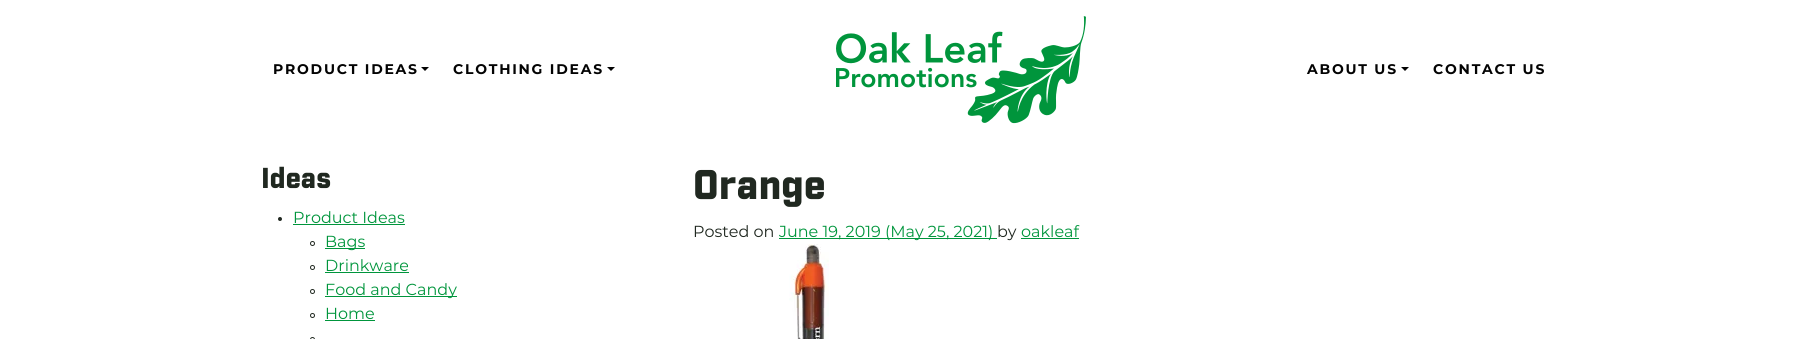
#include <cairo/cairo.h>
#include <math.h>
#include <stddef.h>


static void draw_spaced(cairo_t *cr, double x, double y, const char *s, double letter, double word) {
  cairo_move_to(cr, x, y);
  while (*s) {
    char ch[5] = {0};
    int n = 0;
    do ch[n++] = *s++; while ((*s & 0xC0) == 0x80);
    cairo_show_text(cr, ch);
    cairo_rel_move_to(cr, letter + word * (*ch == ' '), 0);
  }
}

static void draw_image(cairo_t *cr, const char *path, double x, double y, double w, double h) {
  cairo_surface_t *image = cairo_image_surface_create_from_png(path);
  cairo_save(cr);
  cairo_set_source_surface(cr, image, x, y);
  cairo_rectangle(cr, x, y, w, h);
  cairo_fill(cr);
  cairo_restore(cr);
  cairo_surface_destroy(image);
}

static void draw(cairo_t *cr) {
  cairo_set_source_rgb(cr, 1, 1, 1);
  cairo_paint(cr);
  cairo_set_source_rgb(cr, 3 / 255.0, 3 / 255.0, 3 / 255.0);
  cairo_new_path(cr);
  cairo_move_to(cr, 421, 67);
  cairo_line_to(cr, 429, 67);
  cairo_line_to(cr, 425, 71);
  cairo_close_path(cr);
  cairo_fill(cr);
  cairo_new_path(cr);
  cairo_move_to(cr, 607, 67);
  cairo_line_to(cr, 615, 67);
  cairo_line_to(cr, 611, 71);
  cairo_close_path(cr);
  cairo_fill(cr);
  draw_image(cr, "images/1.png", 836, 16, 250, 108);
  cairo_new_path(cr);
  cairo_move_to(cr, 1401, 67);
  cairo_line_to(cr, 1409, 67);
  cairo_line_to(cr, 1405, 71);
  cairo_close_path(cr);
  cairo_fill(cr);
  cairo_set_source_rgb(cr, 32 / 255.0, 40 / 255.0, 32 / 255.0);
  cairo_arc(cr, 280, 219, 2, 0, 2 * M_PI);
  cairo_fill(cr);
  cairo_set_source_rgb(cr, 0, 149 / 255.0, 60 / 255.0);
  cairo_rectangle(cr, 293, 224, 112, 1);
  cairo_fill(cr);
  cairo_arc(cr, 312.5, 243.5, 2, 0, 2 * M_PI);
  cairo_set_source_rgb(cr, 32 / 255.0, 40 / 255.0, 32 / 255.0);
  cairo_set_line_width(cr, 1);
  cairo_stroke(cr);
  cairo_set_source_rgb(cr, 0, 149 / 255.0, 60 / 255.0);
  cairo_rectangle(cr, 325, 248, 40, 1);
  cairo_fill(cr);
  cairo_arc(cr, 312.5, 267.5, 2, 0, 2 * M_PI);
  cairo_set_source_rgb(cr, 32 / 255.0, 40 / 255.0, 32 / 255.0);
  cairo_stroke(cr);
  cairo_set_source_rgb(cr, 0, 149 / 255.0, 60 / 255.0);
  cairo_rectangle(cr, 325, 272, 84, 1);
  cairo_fill(cr);
  cairo_arc(cr, 312.5, 291.5, 2, 0, 2 * M_PI);
  cairo_set_source_rgb(cr, 32 / 255.0, 40 / 255.0, 32 / 255.0);
  cairo_stroke(cr);
  cairo_set_source_rgb(cr, 0, 149 / 255.0, 60 / 255.0);
  cairo_rectangle(cr, 325, 296, 132, 1);
  cairo_fill(cr);
  cairo_arc(cr, 312.5, 315.5, 2, 0, 2 * M_PI);
  cairo_set_source_rgb(cr, 32 / 255.0, 40 / 255.0, 32 / 255.0);
  cairo_stroke(cr);
  cairo_set_source_rgb(cr, 0, 149 / 255.0, 60 / 255.0);
  cairo_rectangle(cr, 325, 320, 50, 1);
  cairo_fill(cr);
  cairo_arc(cr, 312.5, 339.5, 2, 0, 2 * M_PI);
  cairo_set_source_rgb(cr, 32 / 255.0, 40 / 255.0, 32 / 255.0);
  cairo_stroke(cr);
  cairo_set_source_rgb(cr, 0, 149 / 255.0, 60 / 255.0);
  cairo_rectangle(cr, 779, 238, 218, 1);
  cairo_fill(cr);
  cairo_rectangle(cr, 1021, 238, 58, 1);
  cairo_fill(cr);
  draw_image(cr, "images/2.png", 789, 244, 40, 95);
  cairo_select_font_face(cr, "Montserrat", CAIRO_FONT_SLANT_NORMAL, CAIRO_FONT_WEIGHT_BOLD);
  cairo_set_font_size(cr, 14);
  cairo_set_source_rgb(cr, 3 / 255.0, 3 / 255.0, 3 / 255.0);
  draw_spaced(cr, 273, 74, "PRODUCT IDEAS", 1.75, 0);
  draw_spaced(cr, 453, 74, "CLOTHING IDEAS", 1.75, 0);
  draw_spaced(cr, 1307, 74, "ABOUT US", 1.75, 0);
  draw_spaced(cr, 1433, 74, "CONTACT US", 1.75, 0);
  cairo_select_font_face(cr, "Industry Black", CAIRO_FONT_SLANT_NORMAL, CAIRO_FONT_WEIGHT_NORMAL);
  cairo_set_font_size(cr, 28);
  cairo_set_source_rgb(cr, 32 / 255.0, 40 / 255.0, 32 / 255.0);
  cairo_move_to(cr, 261, 188);
  cairo_show_text(cr, "Ideas");
  cairo_select_font_face(cr, "Montserrat", CAIRO_FONT_SLANT_NORMAL, CAIRO_FONT_WEIGHT_NORMAL);
  cairo_set_font_size(cr, 16);
  cairo_set_source_rgb(cr, 0, 149 / 255.0, 60 / 255.0);
  cairo_move_to(cr, 293, 223);
  cairo_show_text(cr, "Product Ideas");
  cairo_move_to(cr, 325, 247);
  cairo_show_text(cr, "Bags");
  cairo_move_to(cr, 325, 271);
  cairo_show_text(cr, "Drinkware");
  cairo_move_to(cr, 325, 295);
  cairo_show_text(cr, "Food and Candy");
  cairo_move_to(cr, 325, 319);
  cairo_show_text(cr, "Home");
  cairo_select_font_face(cr, "Industry Black", CAIRO_FONT_SLANT_NORMAL, CAIRO_FONT_WEIGHT_NORMAL);
  cairo_set_font_size(cr, 40);
  cairo_set_source_rgb(cr, 32 / 255.0, 40 / 255.0, 32 / 255.0);
  cairo_move_to(cr, 693, 199);
  cairo_show_text(cr, "Orange");
  cairo_select_font_face(cr, "Montserrat", CAIRO_FONT_SLANT_NORMAL, CAIRO_FONT_WEIGHT_NORMAL);
  cairo_set_font_size(cr, 16);
  cairo_move_to(cr, 693, 237);
  cairo_show_text(cr, "Posted on");
  cairo_set_source_rgb(cr, 0, 149 / 255.0, 60 / 255.0);
  cairo_move_to(cr, 779, 237);
  cairo_show_text(cr, "June 19, 2019 (May 25, 2021)");
  cairo_set_source_rgb(cr, 32 / 255.0, 40 / 255.0, 32 / 255.0);
  cairo_move_to(cr, 997, 237);
  cairo_show_text(cr, "by");
  cairo_set_source_rgb(cr, 0, 149 / 255.0, 60 / 255.0);
  cairo_move_to(cr, 1021, 237);
  cairo_show_text(cr, "oakleaf");
}

int main(void) {
  cairo_surface_t *surface = cairo_image_surface_create(CAIRO_FORMAT_RGB24, 1818, 339);
  cairo_t *cr = cairo_create(surface);
  cairo_font_options_t *options = cairo_font_options_create();
  cairo_font_options_set_hint_metrics(options, CAIRO_HINT_METRICS_OFF);
  cairo_font_options_set_hint_style(options, CAIRO_HINT_STYLE_NONE);
  cairo_set_font_options(cr, options);
  cairo_set_miter_limit(cr, 4);
  draw(cr);
  cairo_surface_write_to_png(surface, "out.png");
  cairo_font_options_destroy(options);
  cairo_destroy(cr);
  cairo_surface_destroy(surface);
  return 0;
}
